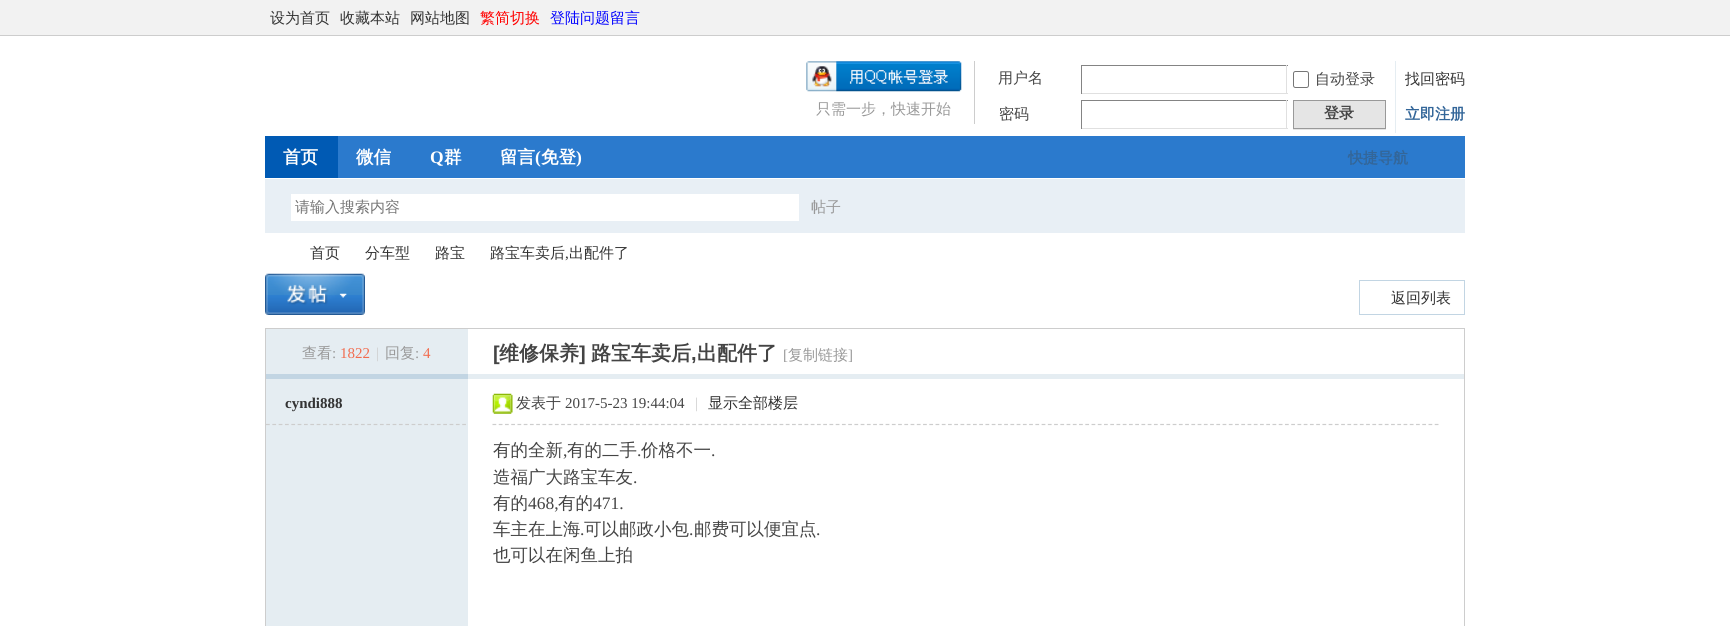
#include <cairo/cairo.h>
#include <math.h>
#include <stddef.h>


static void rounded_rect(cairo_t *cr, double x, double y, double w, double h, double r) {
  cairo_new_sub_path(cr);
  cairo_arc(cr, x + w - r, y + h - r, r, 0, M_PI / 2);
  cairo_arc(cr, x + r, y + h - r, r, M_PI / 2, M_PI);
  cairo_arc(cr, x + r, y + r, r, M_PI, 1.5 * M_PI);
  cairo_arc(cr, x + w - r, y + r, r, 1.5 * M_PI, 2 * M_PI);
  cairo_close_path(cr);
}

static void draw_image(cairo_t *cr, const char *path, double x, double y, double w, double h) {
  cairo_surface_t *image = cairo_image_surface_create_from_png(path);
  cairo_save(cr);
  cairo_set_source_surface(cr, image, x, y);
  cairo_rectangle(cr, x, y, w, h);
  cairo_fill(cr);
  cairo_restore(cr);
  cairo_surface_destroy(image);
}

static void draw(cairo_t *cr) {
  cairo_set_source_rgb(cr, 1, 1, 1);
  cairo_paint(cr);
  cairo_set_source_rgb(cr, 242 / 255.0, 242 / 255.0, 242 / 255.0);
  cairo_rectangle(cr, 0, 0, 1730, 35);
  cairo_fill(cr);
  cairo_set_source_rgb(cr, 205 / 255.0, 205 / 255.0, 205 / 255.0);
  cairo_rectangle(cr, 0, 35, 1730, 1);
  cairo_fill(cr);
  cairo_rectangle(cr, 974, 61, 1, 63);
  cairo_fill(cr);
  draw_image(cr, "images/1.png", 806, 61, 156, 31);
  cairo_set_source_rgb(cr, 132 / 255.0, 132 / 255.0, 132 / 255.0);
  cairo_rectangle(cr, 1081, 65, 207, 1);
  cairo_fill(cr);
  cairo_set_source_rgb(cr, 224 / 255.0, 224 / 255.0, 224 / 255.0);
  cairo_rectangle(cr, 1286, 65, 1, 29);
  cairo_fill(cr);
  cairo_rectangle(cr, 1081, 93, 207, 1);
  cairo_fill(cr);
  cairo_set_source_rgb(cr, 132 / 255.0, 132 / 255.0, 132 / 255.0);
  cairo_rectangle(cr, 1081, 65, 1, 29);
  cairo_fill(cr);
  rounded_rect(cr, 1293.5, 71.5, 15, 16, 2);
  cairo_set_source_rgb(cr, 118 / 255.0, 118 / 255.0, 118 / 255.0);
  cairo_set_line_width(cr, 1);
  cairo_stroke(cr);
  cairo_set_source_rgb(cr, 132 / 255.0, 132 / 255.0, 132 / 255.0);
  cairo_rectangle(cr, 1081, 100, 207, 1);
  cairo_fill(cr);
  cairo_set_source_rgb(cr, 224 / 255.0, 224 / 255.0, 224 / 255.0);
  cairo_rectangle(cr, 1286, 100, 1, 29);
  cairo_fill(cr);
  cairo_rectangle(cr, 1081, 128, 207, 1);
  cairo_fill(cr);
  cairo_set_source_rgb(cr, 132 / 255.0, 132 / 255.0, 132 / 255.0);
  cairo_rectangle(cr, 1081, 100, 1, 29);
  cairo_fill(cr);
  cairo_set_source_rgb(cr, 229 / 255.0, 237 / 255.0, 242 / 255.0);
  cairo_rectangle(cr, 1395, 61, 1, 72);
  cairo_fill(cr);
  cairo_set_source_rgb(cr, 229 / 255.0, 229 / 255.0, 229 / 255.0);
  cairo_rectangle(cr, 1293, 129, 93, 1);
  cairo_fill(cr);
  cairo_rectangle(cr, 1293.5, 100.5, 92, 28);
  cairo_fill_preserve(cr);
  cairo_set_source_rgb(cr, 153 / 255.0, 153 / 255.0, 153 / 255.0);
  cairo_stroke(cr);
  cairo_set_source_rgb(cr, 43 / 255.0, 122 / 255.0, 205 / 255.0);
  cairo_rectangle(cr, 338, 136, 1127, 42);
  cairo_fill(cr);
  cairo_set_source_rgb(cr, 0, 90 / 255.0, 180 / 255.0);
  cairo_rectangle(cr, 265, 136, 73, 42);
  cairo_fill(cr);
  cairo_set_source_rgb(cr, 232 / 255.0, 239 / 255.0, 245 / 255.0);
  cairo_rectangle(cr, 265, 179, 1200, 54);
  cairo_fill(cr);
  cairo_set_source_rgb(cr, 1, 1, 1);
  cairo_rectangle(cr, 291, 194, 508, 27);
  cairo_fill(cr);
  draw_image(cr, "images/2.png", 265, 273, 100, 42);
  cairo_rectangle(cr, 1359.5, 280.5, 105, 34);
  cairo_set_source_rgb(cr, 194 / 255.0, 213 / 255.0, 227 / 255.0);
  cairo_stroke(cr);
  cairo_rectangle(cr, 265.5, 328.5, 1199, 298);
  cairo_set_source_rgb(cr, 205 / 255.0, 205 / 255.0, 205 / 255.0);
  cairo_stroke(cr);
  cairo_set_source_rgb(cr, 229 / 255.0, 237 / 255.0, 242 / 255.0);
  cairo_rectangle(cr, 266, 329, 202, 45);
  cairo_fill(cr);
  cairo_set_source_rgb(cr, 194 / 255.0, 213 / 255.0, 227 / 255.0);
  cairo_rectangle(cr, 266, 374, 202, 5);
  cairo_fill(cr);
  cairo_set_source_rgb(cr, 229 / 255.0, 237 / 255.0, 242 / 255.0);
  cairo_rectangle(cr, 468, 374, 996, 5);
  cairo_fill(cr);
  cairo_rectangle(cr, 266, 379, 202, 247);
  cairo_fill(cr);
  cairo_new_path(cr);
  cairo_move_to(cr, 266, 424.5);
  cairo_line_to(cr, 466, 424.5);
  cairo_set_source_rgb(cr, 205 / 255.0, 205 / 255.0, 205 / 255.0);
  cairo_set_line_width(cr, 1.2);
  cairo_set_dash(cr, (double[]){3.75, 2.58}, 2, 0);
  cairo_stroke(cr);
  cairo_new_path(cr);
  cairo_move_to(cr, 492.5, 424.5);
  cairo_line_to(cr, 1439, 424.5);
  cairo_set_dash(cr, (double[]){3.75, 2.49}, 2, 0);
  cairo_stroke(cr);
  draw_image(cr, "images/3.png", 492, 393, 21, 21);
  cairo_select_font_face(cr, "WenQuanYi Zen Hei Medium", CAIRO_FONT_SLANT_NORMAL, CAIRO_FONT_WEIGHT_NORMAL);
  cairo_set_font_size(cr, 15);
  cairo_set_source_rgb(cr, 51 / 255.0, 51 / 255.0, 51 / 255.0);
  cairo_move_to(cr, 270, 23);
  cairo_show_text(cr, "设为首页");
  cairo_move_to(cr, 340, 23);
  cairo_show_text(cr, "收藏本站");
  cairo_move_to(cr, 410, 23);
  cairo_show_text(cr, "网站地图");
  cairo_set_source_rgb(cr, 1, 0, 0);
  cairo_move_to(cr, 480, 23);
  cairo_show_text(cr, "繁简切换");
  cairo_set_source_rgb(cr, 0, 0, 1);
  cairo_move_to(cr, 550, 23);
  cairo_show_text(cr, "登陆问题留言");
  cairo_set_source_rgb(cr, 153 / 255.0, 153 / 255.0, 153 / 255.0);
  cairo_move_to(cr, 816, 114);
  cairo_show_text(cr, "只需一步，快速开始");
  cairo_set_source_rgb(cr, 68 / 255.0, 68 / 255.0, 68 / 255.0);
  cairo_move_to(cr, 998, 83);
  cairo_show_text(cr, "用户名");
  cairo_move_to(cr, 1315, 84);
  cairo_show_text(cr, "自动登录");
  cairo_set_source_rgb(cr, 51 / 255.0, 51 / 255.0, 51 / 255.0);
  cairo_move_to(cr, 1405, 84);
  cairo_show_text(cr, "找回密码");
  cairo_set_source_rgb(cr, 68 / 255.0, 68 / 255.0, 68 / 255.0);
  cairo_move_to(cr, 999, 119);
  cairo_show_text(cr, "密码");
  cairo_select_font_face(cr, "WenQuanYi Zen Hei", CAIRO_FONT_SLANT_NORMAL, CAIRO_FONT_WEIGHT_BOLD);
  cairo_move_to(cr, 1324, 118);
  cairo_show_text(cr, "登录");
  cairo_set_source_rgb(cr, 51 / 255.0, 102 / 255.0, 153 / 255.0);
  cairo_move_to(cr, 1405, 119);
  cairo_show_text(cr, "立即注册");
  cairo_set_font_size(cr, 17.5);
  cairo_set_source_rgb(cr, 1, 1, 1);
  cairo_move_to(cr, 283, 163);
  cairo_show_text(cr, "首页");
  cairo_move_to(cr, 356, 163);
  cairo_show_text(cr, "微信");
  cairo_select_font_face(cr, "Liberation Serif", CAIRO_FONT_SLANT_NORMAL, CAIRO_FONT_WEIGHT_BOLD);
  cairo_move_to(cr, 430, 163);
  cairo_show_text(cr, "Q");
  cairo_select_font_face(cr, "WenQuanYi Zen Hei", CAIRO_FONT_SLANT_NORMAL, CAIRO_FONT_WEIGHT_BOLD);
  cairo_move_to(cr, 444, 163);
  cairo_show_text(cr, "群");
  cairo_move_to(cr, 500, 163);
  cairo_show_text(cr, "留言");
  cairo_select_font_face(cr, "Liberation Serif", CAIRO_FONT_SLANT_NORMAL, CAIRO_FONT_WEIGHT_BOLD);
  cairo_move_to(cr, 535, 163);
  cairo_show_text(cr, "(");
  cairo_select_font_face(cr, "WenQuanYi Zen Hei", CAIRO_FONT_SLANT_NORMAL, CAIRO_FONT_WEIGHT_BOLD);
  cairo_move_to(cr, 541, 163);
  cairo_show_text(cr, "免登");
  cairo_select_font_face(cr, "Liberation Serif", CAIRO_FONT_SLANT_NORMAL, CAIRO_FONT_WEIGHT_BOLD);
  cairo_move_to(cr, 576, 163);
  cairo_show_text(cr, ")");
  cairo_select_font_face(cr, "WenQuanYi Zen Hei", CAIRO_FONT_SLANT_NORMAL, CAIRO_FONT_WEIGHT_BOLD);
  cairo_set_font_size(cr, 15);
  cairo_set_source_rgb(cr, 51 / 255.0, 102 / 255.0, 153 / 255.0);
  cairo_move_to(cr, 1348, 163);
  cairo_show_text(cr, "快捷导航");
  cairo_select_font_face(cr, "WenQuanYi Zen Hei Medium", CAIRO_FONT_SLANT_NORMAL, CAIRO_FONT_WEIGHT_NORMAL);
  cairo_set_source_rgb(cr, 117 / 255.0, 117 / 255.0, 117 / 255.0);
  cairo_move_to(cr, 295, 212);
  cairo_show_text(cr, "请输入搜索内容");
  cairo_set_source_rgb(cr, 153 / 255.0, 153 / 255.0, 153 / 255.0);
  cairo_move_to(cr, 811, 212);
  cairo_show_text(cr, "帖子");
  cairo_set_source_rgb(cr, 51 / 255.0, 51 / 255.0, 51 / 255.0);
  cairo_move_to(cr, 310, 258);
  cairo_show_text(cr, "首页");
  cairo_move_to(cr, 365, 258);
  cairo_show_text(cr, "分车型");
  cairo_move_to(cr, 435, 258);
  cairo_show_text(cr, "路宝");
  cairo_move_to(cr, 490, 258);
  cairo_show_text(cr, "路宝车卖后");
  cairo_select_font_face(cr, "Liberation Serif", CAIRO_FONT_SLANT_NORMAL, CAIRO_FONT_WEIGHT_NORMAL);
  cairo_move_to(cr, 565, 258);
  cairo_show_text(cr, ",");
  cairo_select_font_face(cr, "WenQuanYi Zen Hei Medium", CAIRO_FONT_SLANT_NORMAL, CAIRO_FONT_WEIGHT_NORMAL);
  cairo_move_to(cr, 569, 258);
  cairo_show_text(cr, "出配件了");
  cairo_move_to(cr, 1391, 303);
  cairo_show_text(cr, "返回列表");
  cairo_set_source_rgb(cr, 153 / 255.0, 153 / 255.0, 153 / 255.0);
  cairo_move_to(cr, 302, 358);
  cairo_show_text(cr, "查看");
  cairo_select_font_face(cr, "Liberation Serif", CAIRO_FONT_SLANT_NORMAL, CAIRO_FONT_WEIGHT_NORMAL);
  cairo_move_to(cr, 332, 358);
  cairo_show_text(cr, ":");
  cairo_set_source_rgb(cr, 242 / 255.0, 108 / 255.0, 79 / 255.0);
  cairo_move_to(cr, 340, 358);
  cairo_show_text(cr, "1822");
  cairo_set_source_rgb(cr, 204 / 255.0, 204 / 255.0, 204 / 255.0);
  cairo_move_to(cr, 376, 358);
  cairo_show_text(cr, "|");
  cairo_select_font_face(cr, "WenQuanYi Zen Hei Medium", CAIRO_FONT_SLANT_NORMAL, CAIRO_FONT_WEIGHT_NORMAL);
  cairo_set_source_rgb(cr, 153 / 255.0, 153 / 255.0, 153 / 255.0);
  cairo_move_to(cr, 385, 358);
  cairo_show_text(cr, "回复");
  cairo_select_font_face(cr, "Liberation Serif", CAIRO_FONT_SLANT_NORMAL, CAIRO_FONT_WEIGHT_NORMAL);
  cairo_move_to(cr, 415, 358);
  cairo_show_text(cr, ":");
  cairo_set_source_rgb(cr, 242 / 255.0, 108 / 255.0, 79 / 255.0);
  cairo_move_to(cr, 423, 358);
  cairo_show_text(cr, "4");
  cairo_select_font_face(cr, "Liberation Sans", CAIRO_FONT_SLANT_NORMAL, CAIRO_FONT_WEIGHT_BOLD);
  cairo_set_font_size(cr, 20);
  cairo_set_source_rgb(cr, 68 / 255.0, 68 / 255.0, 68 / 255.0);
  cairo_move_to(cr, 493, 360);
  cairo_show_text(cr, "[");
  cairo_select_font_face(cr, "WenQuanYi Zen Hei", CAIRO_FONT_SLANT_NORMAL, CAIRO_FONT_WEIGHT_BOLD);
  cairo_move_to(cr, 499, 360);
  cairo_show_text(cr, "维修保养");
  cairo_select_font_face(cr, "Liberation Sans", CAIRO_FONT_SLANT_NORMAL, CAIRO_FONT_WEIGHT_BOLD);
  cairo_move_to(cr, 579, 360);
  cairo_show_text(cr, "]");
  cairo_select_font_face(cr, "WenQuanYi Zen Hei", CAIRO_FONT_SLANT_NORMAL, CAIRO_FONT_WEIGHT_BOLD);
  cairo_move_to(cr, 591, 360);
  cairo_show_text(cr, "路宝车卖后");
  cairo_select_font_face(cr, "Liberation Sans", CAIRO_FONT_SLANT_NORMAL, CAIRO_FONT_WEIGHT_BOLD);
  cairo_move_to(cr, 691, 360);
  cairo_show_text(cr, ",");
  cairo_select_font_face(cr, "WenQuanYi Zen Hei", CAIRO_FONT_SLANT_NORMAL, CAIRO_FONT_WEIGHT_BOLD);
  cairo_move_to(cr, 697, 360);
  cairo_show_text(cr, "出配件了");
  cairo_select_font_face(cr, "Liberation Serif", CAIRO_FONT_SLANT_NORMAL, CAIRO_FONT_WEIGHT_NORMAL);
  cairo_set_font_size(cr, 15);
  cairo_set_source_rgb(cr, 153 / 255.0, 153 / 255.0, 153 / 255.0);
  cairo_move_to(cr, 783, 360);
  cairo_show_text(cr, "[");
  cairo_select_font_face(cr, "WenQuanYi Zen Hei Medium", CAIRO_FONT_SLANT_NORMAL, CAIRO_FONT_WEIGHT_NORMAL);
  cairo_move_to(cr, 788, 360);
  cairo_show_text(cr, "复制链接");
  cairo_select_font_face(cr, "Liberation Serif", CAIRO_FONT_SLANT_NORMAL, CAIRO_FONT_WEIGHT_NORMAL);
  cairo_move_to(cr, 848, 360);
  cairo_show_text(cr, "]");
  cairo_select_font_face(cr, "Liberation Serif", CAIRO_FONT_SLANT_NORMAL, CAIRO_FONT_WEIGHT_BOLD);
  cairo_set_source_rgb(cr, 51 / 255.0, 51 / 255.0, 51 / 255.0);
  cairo_move_to(cr, 285, 408);
  cairo_show_text(cr, "cyndi888");
  cairo_select_font_face(cr, "WenQuanYi Zen Hei Medium", CAIRO_FONT_SLANT_NORMAL, CAIRO_FONT_WEIGHT_NORMAL);
  cairo_set_source_rgb(cr, 68 / 255.0, 68 / 255.0, 68 / 255.0);
  cairo_move_to(cr, 516, 408);
  cairo_show_text(cr, "发表于");
  cairo_select_font_face(cr, "Liberation Serif", CAIRO_FONT_SLANT_NORMAL, CAIRO_FONT_WEIGHT_NORMAL);
  cairo_move_to(cr, 565, 408);
  cairo_show_text(cr, "2017-5-23 19:44:04");
  cairo_set_source_rgb(cr, 204 / 255.0, 204 / 255.0, 204 / 255.0);
  cairo_move_to(cr, 695, 408);
  cairo_show_text(cr, "|");
  cairo_select_font_face(cr, "WenQuanYi Zen Hei Medium", CAIRO_FONT_SLANT_NORMAL, CAIRO_FONT_WEIGHT_NORMAL);
  cairo_set_source_rgb(cr, 51 / 255.0, 51 / 255.0, 51 / 255.0);
  cairo_move_to(cr, 708, 408);
  cairo_show_text(cr, "显示全部楼层");
  cairo_set_font_size(cr, 17.5);
  cairo_set_source_rgb(cr, 68 / 255.0, 68 / 255.0, 68 / 255.0);
  cairo_move_to(cr, 493, 456);
  cairo_show_text(cr, "有的全新");
  cairo_select_font_face(cr, "Liberation Serif", CAIRO_FONT_SLANT_NORMAL, CAIRO_FONT_WEIGHT_NORMAL);
  cairo_move_to(cr, 563, 456);
  cairo_show_text(cr, ",");
  cairo_select_font_face(cr, "WenQuanYi Zen Hei Medium", CAIRO_FONT_SLANT_NORMAL, CAIRO_FONT_WEIGHT_NORMAL);
  cairo_move_to(cr, 567, 456);
  cairo_show_text(cr, "有的二手");
  cairo_select_font_face(cr, "Liberation Serif", CAIRO_FONT_SLANT_NORMAL, CAIRO_FONT_WEIGHT_NORMAL);
  cairo_move_to(cr, 637, 456);
  cairo_show_text(cr, ".");
  cairo_select_font_face(cr, "WenQuanYi Zen Hei Medium", CAIRO_FONT_SLANT_NORMAL, CAIRO_FONT_WEIGHT_NORMAL);
  cairo_move_to(cr, 641, 456);
  cairo_show_text(cr, "价格不一");
  cairo_select_font_face(cr, "Liberation Serif", CAIRO_FONT_SLANT_NORMAL, CAIRO_FONT_WEIGHT_NORMAL);
  cairo_move_to(cr, 711, 456);
  cairo_show_text(cr, ".");
  cairo_select_font_face(cr, "WenQuanYi Zen Hei Medium", CAIRO_FONT_SLANT_NORMAL, CAIRO_FONT_WEIGHT_NORMAL);
  cairo_move_to(cr, 493, 483);
  cairo_show_text(cr, "造福广大路宝车友");
  cairo_select_font_face(cr, "Liberation Serif", CAIRO_FONT_SLANT_NORMAL, CAIRO_FONT_WEIGHT_NORMAL);
  cairo_move_to(cr, 633, 483);
  cairo_show_text(cr, ".");
  cairo_select_font_face(cr, "WenQuanYi Zen Hei Medium", CAIRO_FONT_SLANT_NORMAL, CAIRO_FONT_WEIGHT_NORMAL);
  cairo_move_to(cr, 493, 509);
  cairo_show_text(cr, "有的");
  cairo_select_font_face(cr, "Liberation Serif", CAIRO_FONT_SLANT_NORMAL, CAIRO_FONT_WEIGHT_NORMAL);
  cairo_move_to(cr, 528, 509);
  cairo_show_text(cr, "468,");
  cairo_select_font_face(cr, "WenQuanYi Zen Hei Medium", CAIRO_FONT_SLANT_NORMAL, CAIRO_FONT_WEIGHT_NORMAL);
  cairo_move_to(cr, 558, 509);
  cairo_show_text(cr, "有的");
  cairo_select_font_face(cr, "Liberation Serif", CAIRO_FONT_SLANT_NORMAL, CAIRO_FONT_WEIGHT_NORMAL);
  cairo_move_to(cr, 593, 509);
  cairo_show_text(cr, "471.");
  cairo_select_font_face(cr, "WenQuanYi Zen Hei Medium", CAIRO_FONT_SLANT_NORMAL, CAIRO_FONT_WEIGHT_NORMAL);
  cairo_move_to(cr, 493, 535);
  cairo_show_text(cr, "车主在上海");
  cairo_select_font_face(cr, "Liberation Serif", CAIRO_FONT_SLANT_NORMAL, CAIRO_FONT_WEIGHT_NORMAL);
  cairo_move_to(cr, 580, 535);
  cairo_show_text(cr, ".");
  cairo_select_font_face(cr, "WenQuanYi Zen Hei Medium", CAIRO_FONT_SLANT_NORMAL, CAIRO_FONT_WEIGHT_NORMAL);
  cairo_move_to(cr, 584, 535);
  cairo_show_text(cr, "可以邮政小包");
  cairo_select_font_face(cr, "Liberation Serif", CAIRO_FONT_SLANT_NORMAL, CAIRO_FONT_WEIGHT_NORMAL);
  cairo_move_to(cr, 689, 535);
  cairo_show_text(cr, ".");
  cairo_select_font_face(cr, "WenQuanYi Zen Hei Medium", CAIRO_FONT_SLANT_NORMAL, CAIRO_FONT_WEIGHT_NORMAL);
  cairo_move_to(cr, 694, 535);
  cairo_show_text(cr, "邮费可以便宜点");
  cairo_select_font_face(cr, "Liberation Serif", CAIRO_FONT_SLANT_NORMAL, CAIRO_FONT_WEIGHT_NORMAL);
  cairo_move_to(cr, 816, 535);
  cairo_show_text(cr, ".");
  cairo_select_font_face(cr, "WenQuanYi Zen Hei Medium", CAIRO_FONT_SLANT_NORMAL, CAIRO_FONT_WEIGHT_NORMAL);
  cairo_move_to(cr, 493, 561);
  cairo_show_text(cr, "也可以在闲鱼上拍");
}

int main(void) {
  cairo_surface_t *surface = cairo_image_surface_create(CAIRO_FORMAT_RGB24, 1730, 626);
  cairo_t *cr = cairo_create(surface);
  cairo_font_options_t *options = cairo_font_options_create();
  cairo_font_options_set_hint_metrics(options, CAIRO_HINT_METRICS_OFF);
  cairo_font_options_set_hint_style(options, CAIRO_HINT_STYLE_NONE);
  cairo_set_font_options(cr, options);
  cairo_set_miter_limit(cr, 4);
  draw(cr);
  cairo_surface_write_to_png(surface, "out.png");
  cairo_font_options_destroy(options);
  cairo_destroy(cr);
  cairo_surface_destroy(surface);
  return 0;
}
